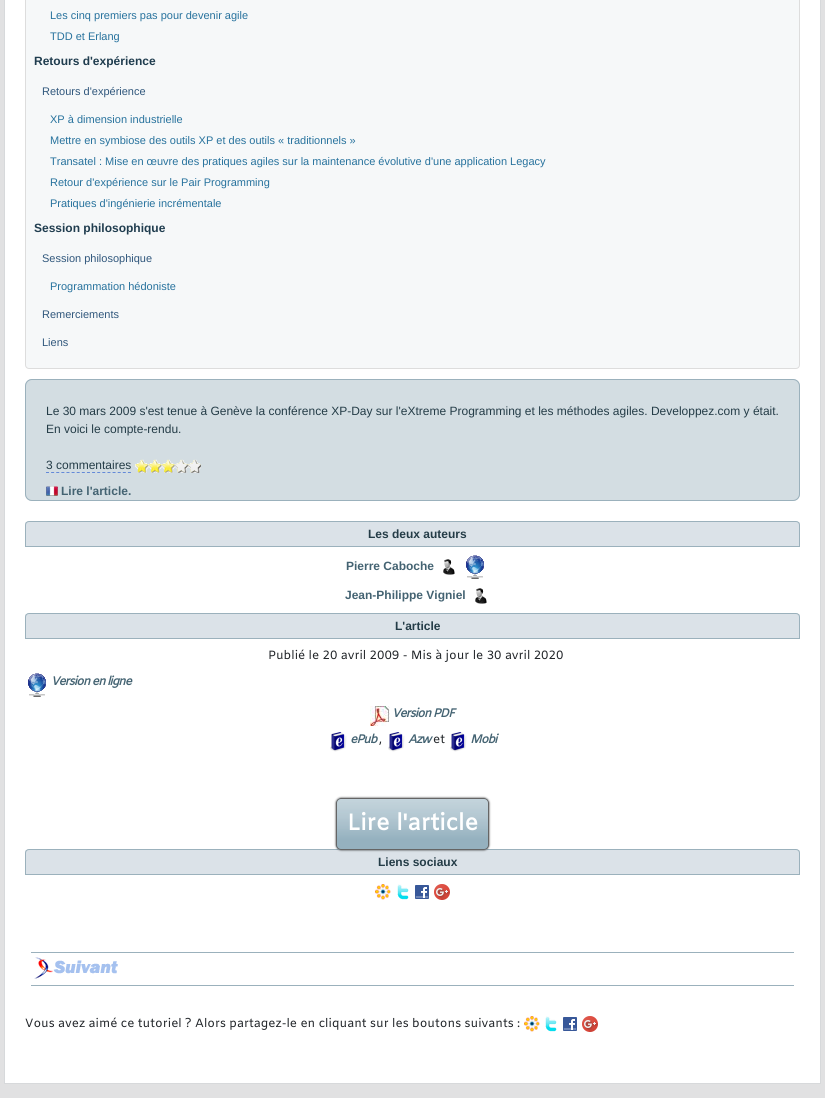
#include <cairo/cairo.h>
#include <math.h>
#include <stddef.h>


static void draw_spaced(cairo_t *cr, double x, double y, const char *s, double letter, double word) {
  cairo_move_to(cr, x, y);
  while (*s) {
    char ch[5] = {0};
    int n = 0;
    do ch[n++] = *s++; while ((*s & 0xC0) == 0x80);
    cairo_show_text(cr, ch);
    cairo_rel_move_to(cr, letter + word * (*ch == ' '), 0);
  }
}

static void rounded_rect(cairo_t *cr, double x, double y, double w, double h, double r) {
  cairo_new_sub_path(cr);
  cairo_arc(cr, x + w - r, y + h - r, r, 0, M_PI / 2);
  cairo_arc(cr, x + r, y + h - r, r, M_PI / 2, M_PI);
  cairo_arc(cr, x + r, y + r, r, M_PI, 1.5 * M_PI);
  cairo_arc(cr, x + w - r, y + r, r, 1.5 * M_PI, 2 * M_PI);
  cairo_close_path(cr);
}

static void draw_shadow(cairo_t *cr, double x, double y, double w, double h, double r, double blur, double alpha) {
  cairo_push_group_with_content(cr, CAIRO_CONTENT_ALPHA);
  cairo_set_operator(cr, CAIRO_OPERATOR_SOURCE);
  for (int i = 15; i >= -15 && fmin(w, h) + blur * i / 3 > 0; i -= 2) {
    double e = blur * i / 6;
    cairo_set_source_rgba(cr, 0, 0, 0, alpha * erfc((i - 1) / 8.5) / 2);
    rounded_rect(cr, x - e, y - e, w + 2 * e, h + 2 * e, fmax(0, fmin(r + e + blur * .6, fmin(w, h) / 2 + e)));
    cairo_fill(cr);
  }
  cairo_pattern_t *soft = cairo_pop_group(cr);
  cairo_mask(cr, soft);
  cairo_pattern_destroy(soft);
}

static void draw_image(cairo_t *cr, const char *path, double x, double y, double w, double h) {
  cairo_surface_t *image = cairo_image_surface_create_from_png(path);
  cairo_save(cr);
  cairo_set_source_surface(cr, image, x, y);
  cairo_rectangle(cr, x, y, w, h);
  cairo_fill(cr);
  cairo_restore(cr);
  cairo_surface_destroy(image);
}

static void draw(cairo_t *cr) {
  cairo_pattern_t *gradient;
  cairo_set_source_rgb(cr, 225 / 255.0, 225 / 255.0, 226 / 255.0);
  cairo_paint(cr);
  cairo_set_source_rgb(cr, 1, 1, 1);
  cairo_rectangle(cr, 4.5, -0.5, 816, 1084);
  cairo_fill_preserve(cr);
  cairo_set_source_rgb(cr, 215 / 255.0, 217 / 255.0, 219 / 255.0);
  cairo_set_line_width(cr, 1);
  cairo_stroke(cr);
  cairo_set_source_rgb(cr, 246 / 255.0, 248 / 255.0, 249 / 255.0);
  rounded_rect(cr, 25.5, -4.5, 774, 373, 3.5);
  cairo_fill_preserve(cr);
  cairo_set_source_rgb(cr, 221 / 255.0, 221 / 255.0, 221 / 255.0);
  cairo_stroke(cr);
  cairo_set_source_rgb(cr, 225 / 255.0, 232 / 255.0, 235 / 255.0);
  rounded_rect(cr, 25, 379, 775, 122, 7);
  cairo_fill(cr);
  draw_image(cr, "images/1.png", 25, 379, 775, 122);
  rounded_rect(cr, 25.5, 379.5, 774, 121, 6.5);
  cairo_set_source_rgb(cr, 155 / 255.0, 177 / 255.0, 188 / 255.0);
  cairo_stroke(cr);
  cairo_new_path(cr);
  cairo_move_to(cr, 46, 472.5);
  cairo_line_to(cr, 131, 472.5);
  cairo_set_source_rgb(cr, 99 / 255.0, 137 / 255.0, 216 / 255.0);
  cairo_set_dash(cr, (double[]){3, 2.12}, 2, 0);
  cairo_stroke(cr);
  draw_image(cr, "images/2.png", 135, 459, 66, 14);
  draw_image(cr, "images/3.png", 46, 486, 12, 10);
  cairo_set_source_rgb(cr, 235 / 255.0, 239 / 255.0, 242 / 255.0);
  cairo_new_path(cr);
  cairo_move_to(cr, 29, 521);
  cairo_line_to(cr, 796, 521);
  cairo_curve_to(cr, 798, 521, 800, 523, 800, 525);
  cairo_line_to(cr, 800, 547);
  cairo_line_to(cr, 25, 547);
  cairo_line_to(cr, 25, 525);
  cairo_curve_to(cr, 25, 523, 27, 521, 29, 521);
  cairo_close_path(cr);
  cairo_fill(cr);
  cairo_set_source_rgba(cr, 155 / 255.0, 175 / 255.0, 190 / 255.0, 0.2);
  cairo_rectangle(cr, 25, 522, 775, 24);
  cairo_fill(cr);
  cairo_new_path(cr);
  cairo_move_to(cr, 29, 521.5);
  cairo_line_to(cr, 796, 521.5);
  cairo_curve_to(cr, 798, 521.5, 799.5, 523, 799.5, 525);
  cairo_line_to(cr, 799.5, 546.5);
  cairo_line_to(cr, 25.5, 546.5);
  cairo_line_to(cr, 25.5, 525);
  cairo_curve_to(cr, 25.5, 523, 27, 521.5, 29, 521.5);
  cairo_close_path(cr);
  cairo_set_source_rgb(cr, 155 / 255.0, 177 / 255.0, 188 / 255.0);
  cairo_set_dash(cr, NULL, 0, 0);
  cairo_stroke(cr);
  draw_image(cr, "images/4.png", 443, 559, 12, 16);
  draw_image(cr, "images/5.png", 466, 555, 18, 24);
  draw_image(cr, "images/4.png", 475, 588, 12, 16);
  cairo_set_source_rgb(cr, 235 / 255.0, 239 / 255.0, 242 / 255.0);
  cairo_new_path(cr);
  cairo_move_to(cr, 29, 613);
  cairo_line_to(cr, 796, 613);
  cairo_curve_to(cr, 798, 613, 800, 615, 800, 617);
  cairo_line_to(cr, 800, 639);
  cairo_line_to(cr, 25, 639);
  cairo_line_to(cr, 25, 617);
  cairo_curve_to(cr, 25, 615, 27, 613, 29, 613);
  cairo_close_path(cr);
  cairo_fill(cr);
  cairo_set_source_rgba(cr, 155 / 255.0, 175 / 255.0, 190 / 255.0, 0.2);
  cairo_rectangle(cr, 25, 614, 775, 24);
  cairo_fill(cr);
  cairo_new_path(cr);
  cairo_move_to(cr, 29, 613.5);
  cairo_line_to(cr, 796, 613.5);
  cairo_curve_to(cr, 798, 613.5, 799.5, 615, 799.5, 617);
  cairo_line_to(cr, 799.5, 638.5);
  cairo_line_to(cr, 25.5, 638.5);
  cairo_line_to(cr, 25.5, 617);
  cairo_curve_to(cr, 25.5, 615, 27, 613.5, 29, 613.5);
  cairo_close_path(cr);
  cairo_set_source_rgb(cr, 155 / 255.0, 177 / 255.0, 188 / 255.0);
  cairo_stroke(cr);
  draw_image(cr, "images/5.png", 28, 673, 18, 24);
  draw_image(cr, "images/6.png", 370, 706, 20, 20);
  draw_image(cr, "images/7.png", 330, 732, 17, 20);
  draw_image(cr, "images/7.png", 388, 732, 17, 20);
  draw_image(cr, "images/7.png", 450, 732, 17, 20);
  cairo_set_source_rgb(cr, 235 / 255.0, 239 / 255.0, 242 / 255.0);
  cairo_new_path(cr);
  cairo_move_to(cr, 29, 849);
  cairo_line_to(cr, 796, 849);
  cairo_curve_to(cr, 798, 849, 800, 851, 800, 853);
  cairo_line_to(cr, 800, 875);
  cairo_line_to(cr, 25, 875);
  cairo_line_to(cr, 25, 853);
  cairo_curve_to(cr, 25, 851, 27, 849, 29, 849);
  cairo_close_path(cr);
  cairo_fill(cr);
  cairo_set_source_rgba(cr, 155 / 255.0, 175 / 255.0, 190 / 255.0, 0.2);
  cairo_rectangle(cr, 25, 850, 775, 24);
  cairo_fill(cr);
  cairo_new_path(cr);
  cairo_move_to(cr, 29, 849.5);
  cairo_line_to(cr, 796, 849.5);
  cairo_curve_to(cr, 798, 849.5, 799.5, 851, 799.5, 853);
  cairo_line_to(cr, 799.5, 874.5);
  cairo_line_to(cr, 25.5, 874.5);
  cairo_line_to(cr, 25.5, 853);
  cairo_curve_to(cr, 25.5, 851, 27, 849.5, 29, 849.5);
  cairo_close_path(cr);
  cairo_set_source_rgb(cr, 155 / 255.0, 177 / 255.0, 188 / 255.0);
  cairo_stroke(cr);
  cairo_save(cr);
  cairo_set_fill_rule(cr, CAIRO_FILL_RULE_EVEN_ODD);
  cairo_new_path(cr);
  cairo_move_to(cr, 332, 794);
  cairo_line_to(cr, 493, 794);
  cairo_line_to(cr, 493, 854);
  cairo_line_to(cr, 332, 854);
  cairo_close_path(cr);
  cairo_move_to(cr, 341, 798);
  cairo_line_to(cr, 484, 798);
  cairo_curve_to(cr, 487, 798, 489, 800, 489, 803);
  cairo_line_to(cr, 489, 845);
  cairo_curve_to(cr, 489, 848, 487, 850, 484, 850);
  cairo_line_to(cr, 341, 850);
  cairo_curve_to(cr, 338, 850, 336, 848, 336, 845);
  cairo_line_to(cr, 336, 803);
  cairo_curve_to(cr, 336, 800, 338, 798, 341, 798);
  cairo_close_path(cr);
  cairo_clip(cr);
  cairo_set_source_rgb(cr, 52 / 255.0, 52 / 255.0, 52 / 255.0);
  draw_shadow(cr, 336, 798, 153, 52, 5, 1, 1);
  cairo_restore(cr);
  cairo_set_source_rgba(cr, 168 / 255.0, 191 / 255.0, 203 / 255.0, 0.6);
  rounded_rect(cr, 336, 798, 153, 52, 5);
  cairo_fill(cr);
  cairo_save(cr);
  rounded_rect(cr, 336, 798, 153, 52, 5);
  cairo_clip(cr);
  gradient = cairo_pattern_create_linear(413, 849, 413, 799);
  cairo_pattern_add_color_stop_rgba(gradient, 0.2, 149 / 255.0, 177 / 255.0, 191 / 255.0, 1);
  cairo_pattern_add_color_stop_rgba(gradient, 1, 168 / 255.0, 191 / 255.0, 203 / 255.0, 0.2);
  cairo_set_source(cr, gradient);
  cairo_pattern_destroy(gradient);
  cairo_rectangle(cr, 336, 799, 153, 50);
  cairo_fill(cr);
  cairo_restore(cr);
  rounded_rect(cr, 336.5, 798.5, 152, 51, 4.5);
  cairo_set_source_rgb(cr, 101 / 255.0, 101 / 255.0, 101 / 255.0);
  cairo_stroke(cr);
  draw_image(cr, "images/8.png", 375, 884, 16, 16);
  draw_image(cr, "images/9.png", 397, 884, 12, 16);
  draw_image(cr, "images/10.png", 415, 885, 14, 14);
  draw_image(cr, "images/11.png", 434, 884, 16, 16);
  cairo_set_source_rgb(cr, 155 / 255.0, 177 / 255.0, 188 / 255.0);
  cairo_rectangle(cr, 31, 952, 763, 1);
  cairo_fill(cr);
  draw_image(cr, "images/12.png", 34, 957, 84, 22);
  cairo_rectangle(cr, 31, 985, 763, 1);
  cairo_fill(cr);
  draw_image(cr, "images/8.png", 524, 1016, 16, 16);
  draw_image(cr, "images/9.png", 545, 1016, 12, 16);
  draw_image(cr, "images/10.png", 563, 1017, 14, 14);
  draw_image(cr, "images/11.png", 582, 1016, 16, 16);
  cairo_select_font_face(cr, "Liberation Sans", CAIRO_FONT_SLANT_NORMAL, CAIRO_FONT_WEIGHT_NORMAL);
  cairo_set_font_size(cr, 11);
  cairo_set_source_rgb(cr, 39 / 255.0, 114 / 255.0, 157 / 255.0);
  cairo_move_to(cr, 50, 19);
  cairo_show_text(cr, "Les cinq premiers pas pour devenir agile");
  cairo_move_to(cr, 50, 40);
  cairo_show_text(cr, "TDD et Erlang");
  cairo_select_font_face(cr, "Liberation Sans", CAIRO_FONT_SLANT_NORMAL, CAIRO_FONT_WEIGHT_BOLD);
  cairo_set_font_size(cr, 12);
  cairo_set_source_rgb(cr, 32 / 255.0, 61 / 255.0, 79 / 255.0);
  cairo_move_to(cr, 34, 65);
  cairo_show_text(cr, "Retours d'expérience");
  cairo_select_font_face(cr, "Liberation Sans", CAIRO_FONT_SLANT_NORMAL, CAIRO_FONT_WEIGHT_NORMAL);
  cairo_set_font_size(cr, 11);
  cairo_set_source_rgb(cr, 48 / 255.0, 87 / 255.0, 124 / 255.0);
  cairo_move_to(cr, 42, 95);
  cairo_show_text(cr, "Retours d'expérience");
  cairo_set_source_rgb(cr, 39 / 255.0, 114 / 255.0, 157 / 255.0);
  cairo_move_to(cr, 50, 123);
  cairo_show_text(cr, "XP à dimension industrielle");
  cairo_move_to(cr, 50, 144);
  cairo_show_text(cr, "Mettre en symbiose des outils XP et des outils « traditionnels »");
  cairo_move_to(cr, 50, 165);
  cairo_show_text(cr, "Transatel : Mise en œuvre des pratiques agiles sur la maintenance évolutive d'une application Legacy");
  cairo_move_to(cr, 50, 186);
  cairo_show_text(cr, "Retour d'expérience sur le Pair Programming");
  cairo_move_to(cr, 50, 207);
  cairo_show_text(cr, "Pratiques d'ingénierie incrémentale");
  cairo_select_font_face(cr, "Liberation Sans", CAIRO_FONT_SLANT_NORMAL, CAIRO_FONT_WEIGHT_BOLD);
  cairo_set_font_size(cr, 12);
  cairo_set_source_rgb(cr, 32 / 255.0, 61 / 255.0, 79 / 255.0);
  cairo_move_to(cr, 34, 232);
  cairo_show_text(cr, "Session philosophique");
  cairo_select_font_face(cr, "Liberation Sans", CAIRO_FONT_SLANT_NORMAL, CAIRO_FONT_WEIGHT_NORMAL);
  cairo_set_font_size(cr, 11);
  cairo_set_source_rgb(cr, 48 / 255.0, 87 / 255.0, 124 / 255.0);
  cairo_move_to(cr, 42, 262);
  cairo_show_text(cr, "Session philosophique");
  cairo_set_source_rgb(cr, 39 / 255.0, 114 / 255.0, 157 / 255.0);
  cairo_move_to(cr, 50, 290);
  cairo_show_text(cr, "Programmation hédoniste");
  cairo_set_source_rgb(cr, 48 / 255.0, 87 / 255.0, 124 / 255.0);
  cairo_move_to(cr, 42, 318);
  cairo_show_text(cr, "Remerciements");
  cairo_move_to(cr, 42, 346);
  cairo_show_text(cr, "Liens");
  cairo_set_font_size(cr, 12);
  cairo_set_source_rgb(cr, 36 / 255.0, 60 / 255.0, 71 / 255.0);
  cairo_move_to(cr, 46, 415);
  cairo_show_text(cr, "Le 30 mars 2009 s'est tenue à Genève la conférence XP-Day sur l'eXtreme Programming et les méthodes agiles. Developpez.com y était.");
  cairo_move_to(cr, 46, 433);
  cairo_show_text(cr, "En voici le compte-rendu.");
  cairo_move_to(cr, 46, 469);
  cairo_show_text(cr, "3 commentaires");
  cairo_select_font_face(cr, "Liberation Sans", CAIRO_FONT_SLANT_NORMAL, CAIRO_FONT_WEIGHT_BOLD);
  cairo_set_source_rgb(cr, 68 / 255.0, 99 / 255.0, 114 / 255.0);
  cairo_move_to(cr, 61, 495);
  cairo_show_text(cr, "Lire l'article.");
  cairo_set_source_rgb(cr, 36 / 255.0, 60 / 255.0, 71 / 255.0);
  cairo_move_to(cr, 368, 538);
  cairo_show_text(cr, "Les deux auteurs");
  cairo_set_source_rgb(cr, 68 / 255.0, 99 / 255.0, 114 / 255.0);
  cairo_move_to(cr, 346, 570);
  cairo_show_text(cr, "Pierre Caboche");
  cairo_move_to(cr, 345, 599);
  cairo_show_text(cr, "Jean-Philippe Vigniel");
  cairo_set_source_rgb(cr, 36 / 255.0, 60 / 255.0, 71 / 255.0);
  cairo_move_to(cr, 395, 630);
  cairo_show_text(cr, "L'article");
  cairo_select_font_face(cr, "Amiko", CAIRO_FONT_SLANT_NORMAL, CAIRO_FONT_WEIGHT_NORMAL);
  cairo_set_source_rgb(cr, 33 / 255.0, 37 / 255.0, 41 / 255.0);
  cairo_move_to(cr, 268, 659);
  cairo_show_text(cr, "Publié le 20 avril 2009 - Mis à jour le 30 avril 2020");
  cairo_select_font_face(cr, "Amiko", CAIRO_FONT_SLANT_ITALIC, CAIRO_FONT_WEIGHT_BOLD);
  cairo_set_source_rgb(cr, 68 / 255.0, 99 / 255.0, 114 / 255.0);
  draw_spaced(cr, 51, 685, "Version en ligne", -1, 0);
  draw_spaced(cr, 392, 717, "Version PDF", -1, 0);
  draw_spaced(cr, 350, 743, "ePub", -1, 0);
  cairo_select_font_face(cr, "Amiko", CAIRO_FONT_SLANT_NORMAL, CAIRO_FONT_WEIGHT_NORMAL);
  cairo_set_source_rgb(cr, 33 / 255.0, 37 / 255.0, 41 / 255.0);
  cairo_move_to(cr, 379, 743);
  cairo_show_text(cr, ",");
  cairo_select_font_face(cr, "Amiko", CAIRO_FONT_SLANT_ITALIC, CAIRO_FONT_WEIGHT_BOLD);
  cairo_set_source_rgb(cr, 68 / 255.0, 99 / 255.0, 114 / 255.0);
  draw_spaced(cr, 408, 743, "Azw", -1, 0);
  cairo_select_font_face(cr, "Amiko", CAIRO_FONT_SLANT_NORMAL, CAIRO_FONT_WEIGHT_NORMAL);
  cairo_set_source_rgb(cr, 33 / 255.0, 37 / 255.0, 41 / 255.0);
  cairo_move_to(cr, 433, 743);
  cairo_show_text(cr, "et");
  cairo_select_font_face(cr, "Amiko", CAIRO_FONT_SLANT_ITALIC, CAIRO_FONT_WEIGHT_BOLD);
  cairo_set_source_rgb(cr, 68 / 255.0, 99 / 255.0, 114 / 255.0);
  draw_spaced(cr, 470, 743, "Mobi", -1, 0);
  cairo_select_font_face(cr, "Amiko", CAIRO_FONT_SLANT_NORMAL, CAIRO_FONT_WEIGHT_BOLD);
  cairo_set_font_size(cr, 22.75);
  cairo_set_source_rgb(cr, 1, 1, 1);
  cairo_move_to(cr, 347, 830);
  cairo_show_text(cr, "Lire l'article");
  cairo_select_font_face(cr, "Liberation Sans", CAIRO_FONT_SLANT_NORMAL, CAIRO_FONT_WEIGHT_BOLD);
  cairo_set_font_size(cr, 12);
  cairo_set_source_rgb(cr, 36 / 255.0, 60 / 255.0, 71 / 255.0);
  cairo_move_to(cr, 378, 866);
  cairo_show_text(cr, "Liens sociaux");
  cairo_select_font_face(cr, "Amiko", CAIRO_FONT_SLANT_NORMAL, CAIRO_FONT_WEIGHT_NORMAL);
  cairo_set_source_rgb(cr, 33 / 255.0, 37 / 255.0, 41 / 255.0);
  cairo_move_to(cr, 25, 1027);
  cairo_show_text(cr, "Vous avez aimé ce tutoriel ? Alors partagez-le en cliquant sur les boutons suivants :");
}

int main(void) {
  cairo_surface_t *surface = cairo_image_surface_create(CAIRO_FORMAT_RGB24, 825, 1098);
  cairo_t *cr = cairo_create(surface);
  cairo_font_options_t *options = cairo_font_options_create();
  cairo_font_options_set_hint_metrics(options, CAIRO_HINT_METRICS_OFF);
  cairo_font_options_set_hint_style(options, CAIRO_HINT_STYLE_NONE);
  cairo_set_font_options(cr, options);
  cairo_set_miter_limit(cr, 4);
  draw(cr);
  cairo_surface_write_to_png(surface, "out.png");
  cairo_font_options_destroy(options);
  cairo_destroy(cr);
  cairo_surface_destroy(surface);
  return 0;
}
